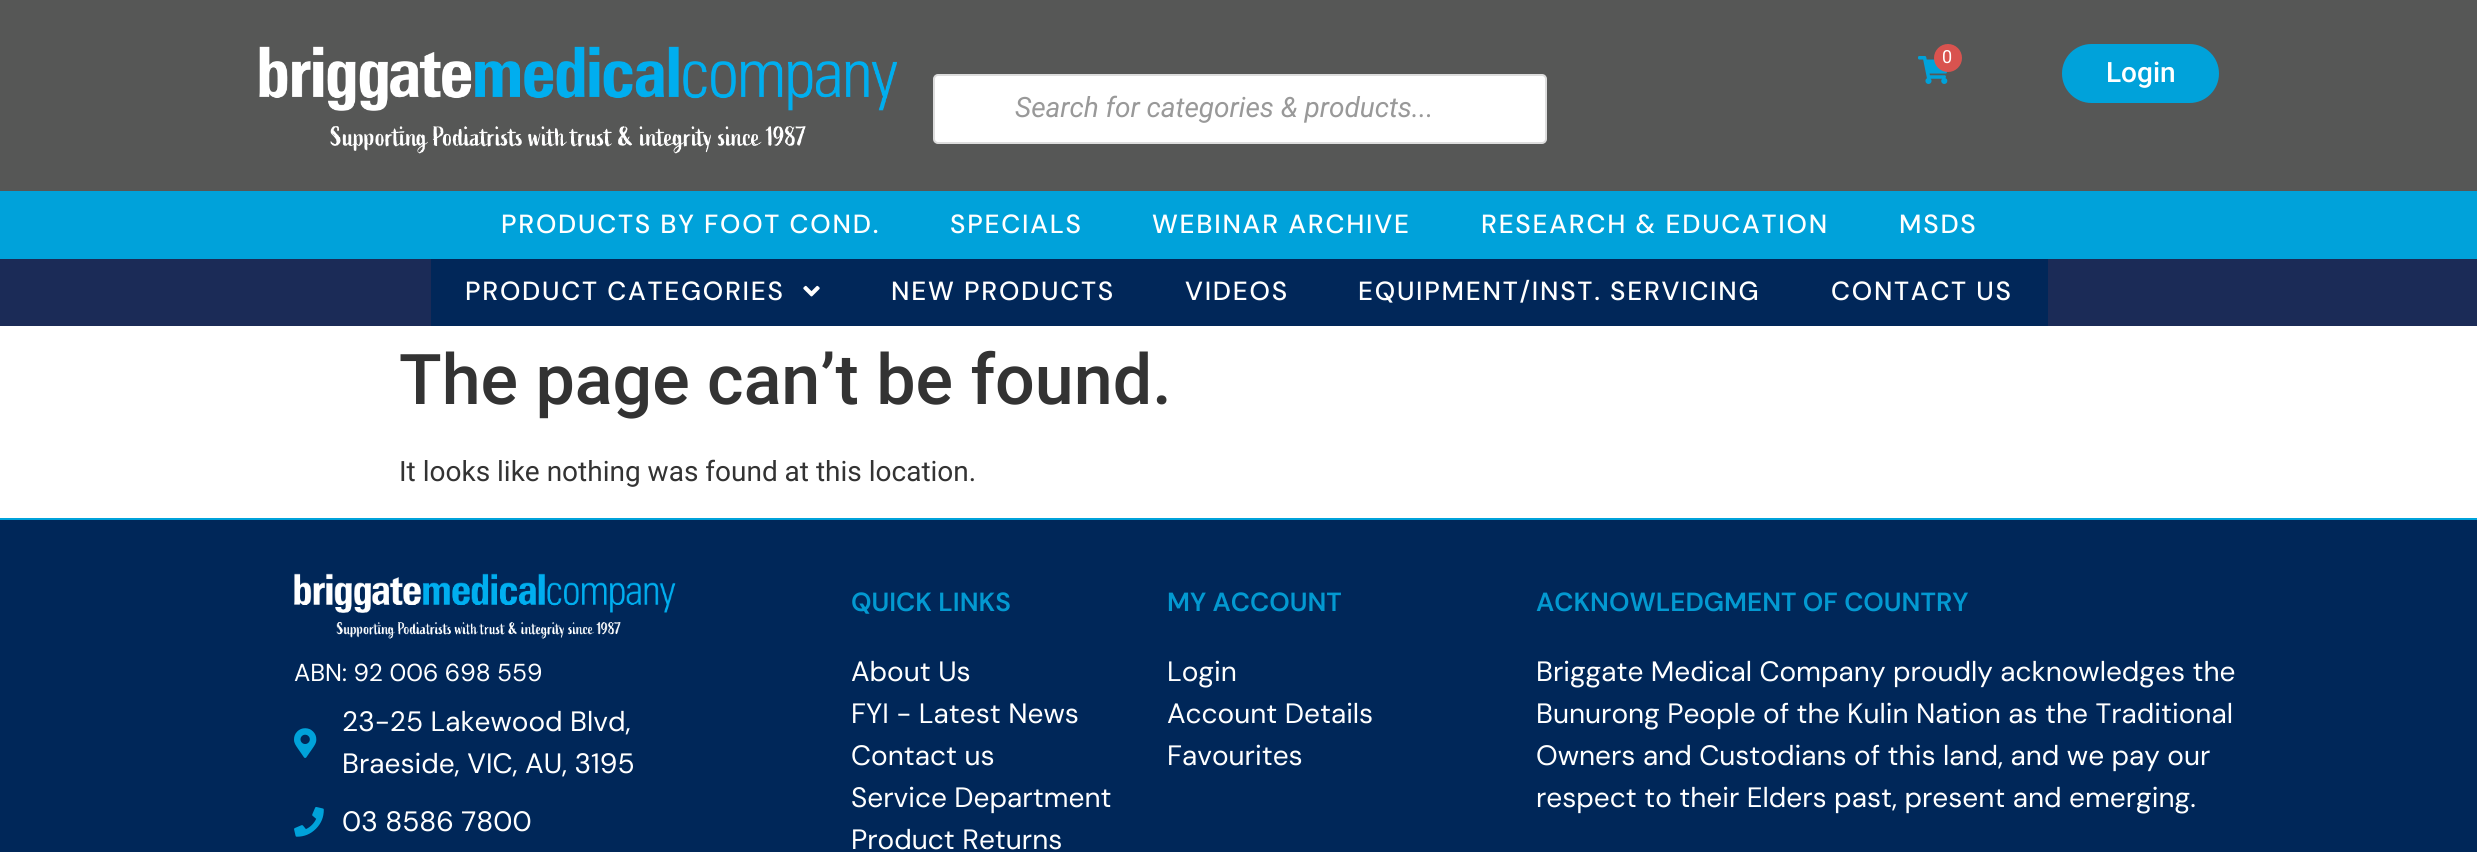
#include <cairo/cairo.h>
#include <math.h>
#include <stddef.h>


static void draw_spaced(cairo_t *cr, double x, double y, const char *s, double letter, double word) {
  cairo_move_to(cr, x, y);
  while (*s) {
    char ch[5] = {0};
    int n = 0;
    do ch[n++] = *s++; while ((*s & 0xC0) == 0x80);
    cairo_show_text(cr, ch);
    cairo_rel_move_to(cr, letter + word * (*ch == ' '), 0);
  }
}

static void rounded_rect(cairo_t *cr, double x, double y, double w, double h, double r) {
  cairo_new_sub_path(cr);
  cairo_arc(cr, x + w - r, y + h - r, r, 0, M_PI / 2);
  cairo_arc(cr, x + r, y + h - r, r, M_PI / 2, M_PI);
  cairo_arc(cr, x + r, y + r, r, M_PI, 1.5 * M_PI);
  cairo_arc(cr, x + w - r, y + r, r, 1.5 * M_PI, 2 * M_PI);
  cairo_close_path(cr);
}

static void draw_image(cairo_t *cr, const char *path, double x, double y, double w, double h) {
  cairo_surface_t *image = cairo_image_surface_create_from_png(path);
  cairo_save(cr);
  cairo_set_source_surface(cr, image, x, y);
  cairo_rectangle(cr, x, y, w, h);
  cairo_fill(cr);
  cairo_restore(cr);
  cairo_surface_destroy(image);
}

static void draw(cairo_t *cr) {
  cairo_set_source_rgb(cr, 1, 1, 1);
  cairo_paint(cr);
  cairo_set_source_rgb(cr, 86 / 255.0, 87 / 255.0, 86 / 255.0);
  cairo_rectangle(cr, 0, 0, 2477, 191);
  cairo_fill(cr);
  draw_image(cr, "images/1.png", 259, 46, 638, 108);
  draw_image(cr, "images/2.png", 1918, 56, 30, 28);
  cairo_set_source_rgb(cr, 217 / 255.0, 83 / 255.0, 79 / 255.0);
  cairo_arc(cr, 1948, 58, 14, 0, 2 * M_PI);
  cairo_fill(cr);
  cairo_set_source_rgb(cr, 0, 162 / 255.0, 218 / 255.0);
  rounded_rect(cr, 2062, 44, 157, 59, 29.5);
  cairo_fill(cr);
  cairo_set_source_rgb(cr, 1, 1, 1);
  rounded_rect(cr, 934, 75, 612, 68, 4);
  cairo_fill_preserve(cr);
  cairo_set_source_rgb(cr, 221 / 255.0, 221 / 255.0, 221 / 255.0);
  cairo_stroke(cr);
  cairo_set_source_rgb(cr, 0, 162 / 255.0, 218 / 255.0);
  cairo_rectangle(cr, 0, 191, 2477, 68);
  cairo_fill(cr);
  cairo_set_source_rgb(cr, 27 / 255.0, 43 / 255.0, 87 / 255.0);
  cairo_rectangle(cr, 0, 259, 2477, 67);
  cairo_fill(cr);
  cairo_set_source_rgb(cr, 1 / 255.0, 39 / 255.0, 89 / 255.0);
  cairo_rectangle(cr, 431, 259, 1617, 67);
  cairo_fill(cr);
  draw_image(cr, "images/3.png", 803, 285, 17, 12);
  cairo_set_source_rgb(cr, 0, 162 / 255.0, 218 / 255.0);
  cairo_rectangle(cr, 0, 518, 2477, 2);
  cairo_fill(cr);
  cairo_set_source_rgb(cr, 0, 39 / 255.0, 89 / 255.0);
  cairo_rectangle(cr, 0, 520, 2477, 332);
  cairo_fill(cr);
  draw_image(cr, "images/4.png", 294, 573, 382, 66);
  draw_image(cr, "images/5.png", 294, 728, 23, 30);
  draw_image(cr, "images/6.png", 294, 807, 30, 30);
  cairo_select_font_face(cr, "Roboto", CAIRO_FONT_SLANT_NORMAL, CAIRO_FONT_WEIGHT_NORMAL);
  cairo_set_font_size(cr, 18);
  cairo_set_source_rgb(cr, 1, 1, 1);
  cairo_move_to(cr, 1942, 63);
  cairo_show_text(cr, "0");
  cairo_select_font_face(cr, "Roboto Medium", CAIRO_FONT_SLANT_NORMAL, CAIRO_FONT_WEIGHT_NORMAL);
  cairo_set_font_size(cr, 28);
  cairo_move_to(cr, 2106, 82);
  cairo_show_text(cr, "Login");
  cairo_select_font_face(cr, "Roboto", CAIRO_FONT_SLANT_ITALIC, CAIRO_FONT_WEIGHT_NORMAL);
  cairo_set_source_rgb(cr, 153 / 255.0, 153 / 255.0, 153 / 255.0);
  cairo_move_to(cr, 1015, 117);
  cairo_show_text(cr, "Search for categories & products...");
  cairo_select_font_face(cr, "DM Sans Medium", CAIRO_FONT_SLANT_NORMAL, CAIRO_FONT_WEIGHT_NORMAL);
  cairo_set_font_size(cr, 26.25);
  cairo_set_source_rgb(cr, 1, 1, 1);
  draw_spaced(cr, 501, 233, "PRODUCTS BY FOOT COND.", 1.75, 0);
  draw_spaced(cr, 950, 233, "SPECIALS", 1.75, 0);
  draw_spaced(cr, 1152, 233, "WEBINAR ARCHIVE", 1.75, 0);
  draw_spaced(cr, 1481, 233, "RESEARCH & EDUCATION", 1.75, 0);
  draw_spaced(cr, 1899, 233, "MSDS", 1.75, 0);
  draw_spaced(cr, 465, 300, "PRODUCT CATEGORIES", 1.75, 0);
  draw_spaced(cr, 891, 300, "NEW PRODUCTS", 1.75, 0);
  draw_spaced(cr, 1185, 300, "VIDEOS", 1.75, 0);
  draw_spaced(cr, 1358, 300, "EQUIPMENT/INST. SERVICING", 1.75, 0);
  draw_spaced(cr, 1831, 300, "CONTACT US", 1.75, 0);
  cairo_select_font_face(cr, "Roboto Medium", CAIRO_FONT_SLANT_NORMAL, CAIRO_FONT_WEIGHT_NORMAL);
  cairo_set_font_size(cr, 70);
  cairo_set_source_rgb(cr, 51 / 255.0, 51 / 255.0, 51 / 255.0);
  cairo_move_to(cr, 399, 404);
  cairo_show_text(cr, "The page can’t be found.");
  cairo_select_font_face(cr, "Roboto", CAIRO_FONT_SLANT_NORMAL, CAIRO_FONT_WEIGHT_NORMAL);
  cairo_set_font_size(cr, 28);
  cairo_move_to(cr, 399, 481);
  cairo_show_text(cr, "It looks like nothing was found at this location.");
  cairo_select_font_face(cr, "DM Sans", CAIRO_FONT_SLANT_NORMAL, CAIRO_FONT_WEIGHT_NORMAL);
  cairo_set_font_size(cr, 24.5);
  cairo_set_source_rgb(cr, 1, 1, 1);
  cairo_move_to(cr, 294, 681);
  cairo_show_text(cr, "ABN: 92 006 698 559");
  cairo_set_font_size(cr, 28);
  cairo_move_to(cr, 342, 731);
  cairo_show_text(cr, "23-25 Lakewood Blvd,");
  cairo_move_to(cr, 342, 773);
  cairo_show_text(cr, "Braeside, VIC, AU, 3195");
  cairo_move_to(cr, 342, 831);
  cairo_show_text(cr, "03 8586 7800");
  cairo_select_font_face(cr, "DM Sans SemiBold", CAIRO_FONT_SLANT_NORMAL, CAIRO_FONT_WEIGHT_NORMAL);
  cairo_set_font_size(cr, 26.25);
  cairo_set_source_rgb(cr, 3 / 255.0, 153 / 255.0, 209 / 255.0);
  cairo_move_to(cr, 851, 611);
  cairo_show_text(cr, "QUICK LINKS");
  cairo_select_font_face(cr, "DM Sans", CAIRO_FONT_SLANT_NORMAL, CAIRO_FONT_WEIGHT_NORMAL);
  cairo_set_font_size(cr, 28);
  cairo_set_source_rgb(cr, 1, 1, 1);
  cairo_move_to(cr, 851, 681);
  cairo_show_text(cr, "About Us");
  cairo_move_to(cr, 851, 723);
  cairo_show_text(cr, "FYI - Latest News");
  cairo_move_to(cr, 851, 765);
  cairo_show_text(cr, "Contact us");
  cairo_move_to(cr, 851, 807);
  cairo_show_text(cr, "Service Department");
  cairo_move_to(cr, 851, 849);
  cairo_show_text(cr, "Product Returns");
  cairo_select_font_face(cr, "DM Sans SemiBold", CAIRO_FONT_SLANT_NORMAL, CAIRO_FONT_WEIGHT_NORMAL);
  cairo_set_font_size(cr, 26.25);
  cairo_set_source_rgb(cr, 3 / 255.0, 153 / 255.0, 209 / 255.0);
  cairo_move_to(cr, 1167, 611);
  cairo_show_text(cr, "MY ACCOUNT");
  cairo_select_font_face(cr, "DM Sans", CAIRO_FONT_SLANT_NORMAL, CAIRO_FONT_WEIGHT_NORMAL);
  cairo_set_font_size(cr, 28);
  cairo_set_source_rgb(cr, 1, 1, 1);
  cairo_move_to(cr, 1167, 681);
  cairo_show_text(cr, "Login");
  cairo_move_to(cr, 1167, 723);
  cairo_show_text(cr, "Account Details");
  cairo_move_to(cr, 1167, 765);
  cairo_show_text(cr, "Favourites");
  cairo_select_font_face(cr, "DM Sans SemiBold", CAIRO_FONT_SLANT_NORMAL, CAIRO_FONT_WEIGHT_NORMAL);
  cairo_set_font_size(cr, 26.25);
  cairo_set_source_rgb(cr, 3 / 255.0, 153 / 255.0, 209 / 255.0);
  cairo_move_to(cr, 1536, 611);
  cairo_show_text(cr, "ACKNOWLEDGMENT OF COUNTRY");
  cairo_select_font_face(cr, "DM Sans", CAIRO_FONT_SLANT_NORMAL, CAIRO_FONT_WEIGHT_NORMAL);
  cairo_set_font_size(cr, 28);
  cairo_set_source_rgb(cr, 1, 1, 1);
  cairo_move_to(cr, 1536, 681);
  cairo_show_text(cr, "Briggate Medical Company proudly acknowledges the");
  cairo_move_to(cr, 1536, 723);
  cairo_show_text(cr, "Bunurong People of the Kulin Nation as the Traditional");
  cairo_move_to(cr, 1536, 765);
  cairo_show_text(cr, "Owners and Custodians of this land, and we pay our");
  cairo_move_to(cr, 1536, 807);
  cairo_show_text(cr, "respect to their Elders past, present and emerging.");
}

int main(void) {
  cairo_surface_t *surface = cairo_image_surface_create(CAIRO_FORMAT_RGB24, 2477, 852);
  cairo_t *cr = cairo_create(surface);
  cairo_font_options_t *options = cairo_font_options_create();
  cairo_font_options_set_hint_metrics(options, CAIRO_HINT_METRICS_OFF);
  cairo_font_options_set_hint_style(options, CAIRO_HINT_STYLE_NONE);
  cairo_set_font_options(cr, options);
  cairo_set_miter_limit(cr, 4);
  draw(cr);
  cairo_surface_write_to_png(surface, "out.png");
  cairo_font_options_destroy(options);
  cairo_destroy(cr);
  cairo_surface_destroy(surface);
  return 0;
}
